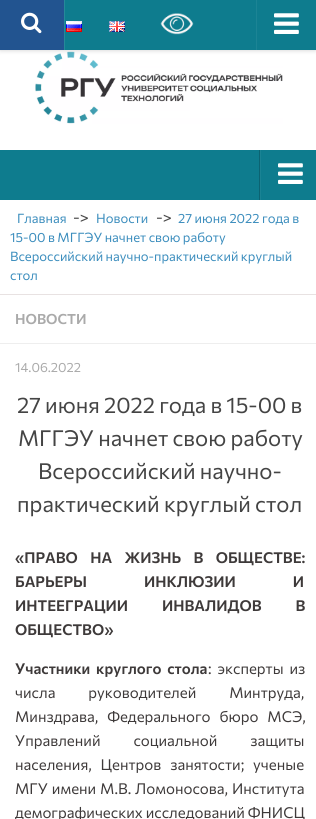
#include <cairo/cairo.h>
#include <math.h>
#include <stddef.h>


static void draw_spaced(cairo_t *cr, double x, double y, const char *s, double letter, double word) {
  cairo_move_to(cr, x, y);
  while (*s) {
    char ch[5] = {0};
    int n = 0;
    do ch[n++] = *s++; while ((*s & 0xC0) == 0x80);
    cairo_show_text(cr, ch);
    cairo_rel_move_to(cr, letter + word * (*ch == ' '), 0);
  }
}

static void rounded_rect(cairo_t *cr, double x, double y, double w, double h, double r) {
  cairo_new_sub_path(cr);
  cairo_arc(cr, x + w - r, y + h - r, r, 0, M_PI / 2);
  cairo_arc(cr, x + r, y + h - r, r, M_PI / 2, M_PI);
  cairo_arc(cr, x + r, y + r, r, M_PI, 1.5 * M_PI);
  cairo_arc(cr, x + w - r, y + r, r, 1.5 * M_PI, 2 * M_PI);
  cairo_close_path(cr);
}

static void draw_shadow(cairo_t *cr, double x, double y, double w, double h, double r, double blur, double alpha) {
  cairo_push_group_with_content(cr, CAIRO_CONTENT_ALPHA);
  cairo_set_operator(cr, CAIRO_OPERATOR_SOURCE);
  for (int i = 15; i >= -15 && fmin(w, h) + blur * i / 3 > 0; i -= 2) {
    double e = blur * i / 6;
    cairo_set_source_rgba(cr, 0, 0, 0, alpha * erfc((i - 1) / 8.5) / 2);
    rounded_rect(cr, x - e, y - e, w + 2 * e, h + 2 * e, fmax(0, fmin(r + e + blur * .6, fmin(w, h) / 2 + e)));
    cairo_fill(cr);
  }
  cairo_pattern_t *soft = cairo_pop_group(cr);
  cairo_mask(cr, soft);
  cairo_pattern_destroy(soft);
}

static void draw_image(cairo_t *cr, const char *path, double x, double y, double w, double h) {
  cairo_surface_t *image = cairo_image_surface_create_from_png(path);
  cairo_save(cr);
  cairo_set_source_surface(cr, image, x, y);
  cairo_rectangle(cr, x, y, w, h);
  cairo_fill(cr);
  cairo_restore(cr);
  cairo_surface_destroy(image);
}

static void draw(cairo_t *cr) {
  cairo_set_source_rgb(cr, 1, 1, 1);
  cairo_paint(cr);
  draw_image(cr, "images/6.png", 35, 51, 248, 73);
  cairo_set_source_rgb(cr, 0, 0, 0);
  draw_shadow(cr, 0, 0, 316, 50, 0, 2.5, 0.2);
  cairo_set_source_rgb(cr, 14 / 255.0, 124 / 255.0, 142 / 255.0);
  cairo_rectangle(cr, 65, 0, 251, 50);
  cairo_fill(cr);
  cairo_set_source_rgb(cr, 38 / 255.0, 137 / 255.0, 153 / 255.0);
  cairo_rectangle(cr, 64, 0, 1, 50);
  cairo_fill(cr);
  cairo_set_source_rgb(cr, 34 / 255.0, 84 / 255.0, 144 / 255.0);
  cairo_rectangle(cr, 0, 0, 64, 50);
  cairo_fill(cr);
  draw_image(cr, "images/1.png", 21, 12, 21, 22);
  draw_image(cr, "images/2.png", 66, 21, 16, 11);
  draw_image(cr, "images/3.png", 109, 21, 16, 11);
  draw_image(cr, "images/4.png", 160, 13, 34, 22);
  cairo_set_source_rgb(cr, 28 / 255.0, 132 / 255.0, 149 / 255.0);
  cairo_rectangle(cr, 256, 0, 1, 50);
  cairo_fill(cr);
  draw_image(cr, "images/5.png", 274, 13, 25, 21);
  cairo_set_source_rgb(cr, 14 / 255.0, 124 / 255.0, 142 / 255.0);
  cairo_rectangle(cr, 0, 150, 316, 50);
  cairo_fill(cr);
  cairo_set_source_rgb(cr, 11 / 255.0, 99 / 255.0, 114 / 255.0);
  cairo_rectangle(cr, 259, 150, 1, 50);
  cairo_fill(cr);
  cairo_set_source_rgb(cr, 26 / 255.0, 131 / 255.0, 148 / 255.0);
  cairo_rectangle(cr, 260, 150, 1, 50);
  cairo_fill(cr);
  draw_image(cr, "images/5.png", 278, 163, 25, 21);
  cairo_set_source_rgb(cr, 232 / 255.0, 226 / 255.0, 226 / 255.0);
  cairo_rectangle(cr, 0, 294, 316, 1);
  cairo_fill(cr);
  cairo_set_source_rgb(cr, 238 / 255.0, 238 / 255.0, 238 / 255.0);
  cairo_rectangle(cr, 0, 343, 316, 1);
  cairo_fill(cr);
  cairo_select_font_face(cr, "Commissioner", CAIRO_FONT_SLANT_NORMAL, CAIRO_FONT_WEIGHT_NORMAL);
  cairo_set_font_size(cr, 13);
  cairo_set_source_rgb(cr, 59 / 255.0, 141 / 255.0, 189 / 255.0);
  cairo_move_to(cr, 17, 223);
  cairo_show_text(cr, "Главная");
  cairo_set_font_size(cr, 16);
  cairo_set_source_rgb(cr, 74 / 255.0, 74 / 255.0, 74 / 255.0);
  cairo_move_to(cr, 73, 223);
  cairo_show_text(cr, "->");
  cairo_set_font_size(cr, 13);
  cairo_set_source_rgb(cr, 59 / 255.0, 141 / 255.0, 189 / 255.0);
  cairo_move_to(cr, 96, 223);
  cairo_show_text(cr, "Новости");
  cairo_set_font_size(cr, 16);
  cairo_set_source_rgb(cr, 74 / 255.0, 74 / 255.0, 74 / 255.0);
  cairo_move_to(cr, 156, 223);
  cairo_show_text(cr, "->");
  cairo_set_font_size(cr, 13);
  cairo_set_source_rgb(cr, 59 / 255.0, 141 / 255.0, 189 / 255.0);
  cairo_move_to(cr, 178, 223);
  cairo_show_text(cr, "27 июня 2022 года в");
  cairo_move_to(cr, 10, 242);
  cairo_show_text(cr, "15-00 в МГГЭУ начнет свою работу");
  cairo_move_to(cr, 10, 261);
  cairo_show_text(cr, "Всероссийский научно-практический круглый");
  cairo_move_to(cr, 10, 280);
  cairo_show_text(cr, "стол");
  cairo_select_font_face(cr, "Commissioner SemiBold", CAIRO_FONT_SLANT_NORMAL, CAIRO_FONT_WEIGHT_NORMAL);
  cairo_set_font_size(cr, 14);
  cairo_set_source_rgb(cr, 170 / 255.0, 170 / 255.0, 170 / 255.0);
  cairo_move_to(cr, 15, 324);
  cairo_show_text(cr, "НОВОСТИ");
  cairo_select_font_face(cr, "Commissioner", CAIRO_FONT_SLANT_NORMAL, CAIRO_FONT_WEIGHT_NORMAL);
  cairo_set_font_size(cr, 13);
  cairo_move_to(cr, 15, 372);
  cairo_show_text(cr, "14.06.2022");
  cairo_set_font_size(cr, 22);
  cairo_set_source_rgb(cr, 68 / 255.0, 68 / 255.0, 68 / 255.0);
  cairo_move_to(cr, 17, 413);
  cairo_show_text(cr, "27 июня 2022 года в 15-00 в");
  cairo_move_to(cr, 18, 446);
  cairo_show_text(cr, "МГГЭУ начнет свою работу");
  cairo_move_to(cr, 38, 479);
  cairo_show_text(cr, "Всероссийский научно-");
  cairo_move_to(cr, 17, 512);
  cairo_show_text(cr, "практический круглый стол");
  cairo_select_font_face(cr, "Commissioner SemiBold", CAIRO_FONT_SLANT_NORMAL, CAIRO_FONT_WEIGHT_NORMAL);
  cairo_set_font_size(cr, 15);
  cairo_set_source_rgb(cr, 62 / 255.0, 58 / 255.0, 58 / 255.0);
  draw_spaced(cr, 15, 563, "«ПРАВО НА ЖИЗНЬ В ОБЩЕСТВЕ:", 0, 9.5);
  draw_spaced(cr, 15, 587, "БАРЬЕРЫ ИНКЛЮЗИИ И", 0, 54);
  draw_spaced(cr, 15, 611, "ИНТЕЕГРАЦИИ ИНВАЛИДОВ В", 0, 31);
  cairo_move_to(cr, 15, 635);
  cairo_show_text(cr, "ОБЩЕСТВО»");
  draw_spaced(cr, 15, 674, "Участники круглого стола", 0, 3);
  cairo_select_font_face(cr, "Commissioner", CAIRO_FONT_SLANT_NORMAL, CAIRO_FONT_WEIGHT_NORMAL);
  draw_spaced(cr, 208, 674, ": эксперты из", 0, 3);
  draw_spaced(cr, 15, 698, "числа руководителей Минтруда,", 0, 30);
  draw_spaced(cr, 15, 722, "Минздрава, Федерального бюро МСЭ,", 0, 6);
  draw_spaced(cr, 15, 746, "Управлений социальной защиты", 0, 30);
  draw_spaced(cr, 15, 770, "населения, Центров занятости; ученые", 0, 6);
  draw_spaced(cr, 15, 794, "МГУ имени М.В. Ломоносова, Института", 0, 1);
  cairo_move_to(cr, 15, 818);
  cairo_show_text(cr, "демографических исследований ФНИСЦ");
}

int main(void) {
  cairo_surface_t *surface = cairo_image_surface_create(CAIRO_FORMAT_RGB24, 316, 819);
  cairo_t *cr = cairo_create(surface);
  cairo_font_options_t *options = cairo_font_options_create();
  cairo_font_options_set_hint_metrics(options, CAIRO_HINT_METRICS_OFF);
  cairo_font_options_set_hint_style(options, CAIRO_HINT_STYLE_NONE);
  cairo_set_font_options(cr, options);
  cairo_set_miter_limit(cr, 4);
  draw(cr);
  cairo_surface_write_to_png(surface, "out.png");
  cairo_font_options_destroy(options);
  cairo_destroy(cr);
  cairo_surface_destroy(surface);
  return 0;
}
